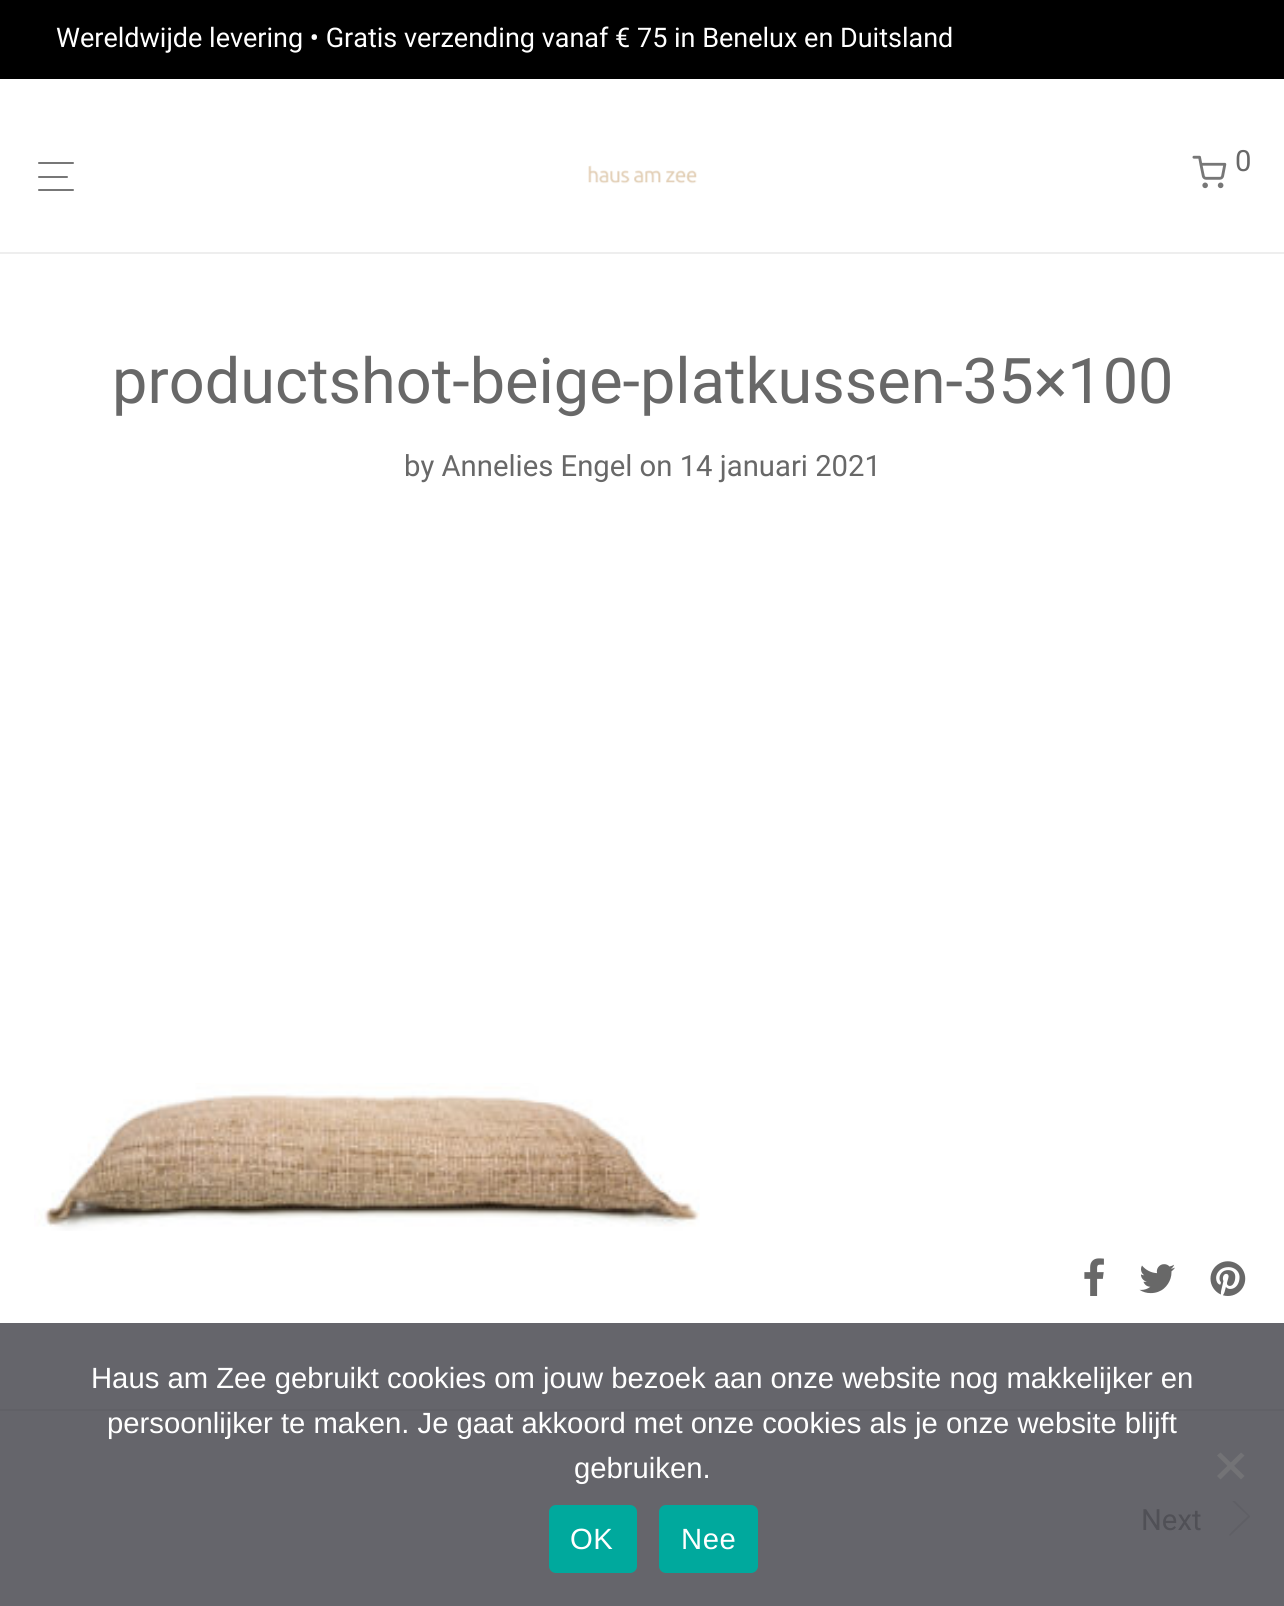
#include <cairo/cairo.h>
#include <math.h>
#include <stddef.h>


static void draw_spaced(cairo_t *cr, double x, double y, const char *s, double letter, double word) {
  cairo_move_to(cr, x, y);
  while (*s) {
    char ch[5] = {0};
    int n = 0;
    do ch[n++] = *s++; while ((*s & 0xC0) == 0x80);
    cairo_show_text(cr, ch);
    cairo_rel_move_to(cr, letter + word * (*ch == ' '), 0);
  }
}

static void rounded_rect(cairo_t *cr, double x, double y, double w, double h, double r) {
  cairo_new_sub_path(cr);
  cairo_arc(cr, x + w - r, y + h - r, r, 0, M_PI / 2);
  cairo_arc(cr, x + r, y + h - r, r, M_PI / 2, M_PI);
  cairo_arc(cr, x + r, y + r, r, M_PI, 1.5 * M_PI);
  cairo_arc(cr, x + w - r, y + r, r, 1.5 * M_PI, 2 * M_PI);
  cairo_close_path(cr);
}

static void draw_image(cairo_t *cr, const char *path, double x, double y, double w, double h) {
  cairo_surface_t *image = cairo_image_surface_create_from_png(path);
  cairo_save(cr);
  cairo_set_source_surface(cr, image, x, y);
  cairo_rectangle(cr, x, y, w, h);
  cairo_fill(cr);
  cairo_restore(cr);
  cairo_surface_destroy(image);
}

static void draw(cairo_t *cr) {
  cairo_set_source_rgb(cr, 1, 1, 1);
  cairo_paint(cr);
  cairo_set_source_rgb(cr, 101 / 255.0, 101 / 255.0, 107 / 255.0);
  cairo_rectangle(cr, 0, 1323, 1284, 283);
  cairo_fill(cr);
  cairo_set_source_rgb(cr, 0, 0, 0);
  cairo_rectangle(cr, 0, 0, 1284, 79);
  cairo_fill(cr);
  cairo_set_source_rgb(cr, 238 / 255.0, 238 / 255.0, 238 / 255.0);
  cairo_rectangle(cr, 0, 252, 1284, 2);
  cairo_fill(cr);
  cairo_set_source_rgb(cr, 119 / 255.0, 119 / 255.0, 119 / 255.0);
  rounded_rect(cr, 38, 162, 36, 2, 1);
  cairo_fill(cr);
  rounded_rect(cr, 38, 176, 30, 2, 1);
  cairo_fill(cr);
  rounded_rect(cr, 38, 189, 36, 2, 1);
  cairo_fill(cr);
  draw_image(cr, "images/1.png", 588, 165, 109, 19);
  draw_image(cr, "images/2.png", 1192, 155, 35, 34);
  draw_image(cr, "images/3.png", 34, 1083, 666, 148);
  draw_image(cr, "images/4.png", 1084, 1258, 20, 38);
  draw_image(cr, "images/5.png", 1139, 1264, 36, 30);
  draw_image(cr, "images/6.png", 1210, 1261, 36, 35);
  cairo_set_source_rgb(cr, 97 / 255.0, 97 / 255.0, 103 / 255.0);
  cairo_rectangle(cr, 0, 1409, 1284, 2);
  cairo_fill(cr);
  cairo_save(cr);
  cairo_rectangle(cr, 34, 1501, 1217, 40);
  cairo_clip(cr);
  cairo_set_source_rgb(cr, 95 / 255.0, 95 / 255.0, 101 / 255.0);
  cairo_new_path(cr);
  cairo_move_to(cr, 1250, 1517);
  cairo_line_to(cr, 1230, 1536);
  cairo_line_to(cr, 1229, 1535);
  cairo_curve_to(cr, 1229, 1534, 1246, 1518, 1248, 1516);
  cairo_curve_to(cr, 1246, 1514, 1229, 1499, 1229, 1497);
  cairo_curve_to(cr, 1229, 1495, 1232, 1497, 1234, 1500);
  cairo_line_to(cr, 1250, 1516);
  cairo_close_path(cr);
  cairo_fill(cr);
  cairo_restore(cr);
  cairo_set_source_rgb(cr, 115 / 255.0, 115 / 255.0, 118 / 255.0);
  cairo_new_path(cr);
  cairo_move_to(cr, 1241, 1452.5);
  cairo_line_to(cr, 1244.5, 1455.5);
  cairo_line_to(cr, 1220.5, 1479.5);
  cairo_line_to(cr, 1217, 1476);
  cairo_close_path(cr);
  cairo_fill(cr);
  cairo_new_path(cr);
  cairo_move_to(cr, 1217, 1455.5);
  cairo_line_to(cr, 1220.5, 1452.5);
  cairo_line_to(cr, 1244.5, 1476);
  cairo_line_to(cr, 1241, 1479.5);
  cairo_close_path(cr);
  cairo_fill(cr);
  cairo_set_source_rgb(cr, 0, 169 / 255.0, 157 / 255.0);
  rounded_rect(cr, 549, 1505, 88, 68, 7);
  cairo_fill(cr);
  rounded_rect(cr, 659, 1505, 99, 68, 7);
  cairo_fill(cr);
  cairo_select_font_face(cr, "Roboto", CAIRO_FONT_SLANT_NORMAL, CAIRO_FONT_WEIGHT_NORMAL);
  cairo_set_font_size(cr, 27);
  cairo_set_source_rgb(cr, 1, 1, 1);
  cairo_move_to(cr, 56, 47);
  cairo_show_text(cr, "Wereldwijde levering • Gratis verzending vanaf € 75 in Benelux en Duitsland");
  cairo_set_font_size(cr, 29.25);
  cairo_set_source_rgb(cr, 104 / 255.0, 104 / 255.0, 104 / 255.0);
  cairo_move_to(cr, 1235, 171);
  cairo_show_text(cr, "0");
  cairo_set_font_size(cr, 63);
  cairo_move_to(cr, 112, 403);
  cairo_show_text(cr, "productshot-beige-platkussen-35×100");
  cairo_set_font_size(cr, 29.25);
  cairo_move_to(cr, 404, 476);
  cairo_show_text(cr, "by Annelies Engel on 14 januari 2021");
  cairo_set_source_rgb(cr, 80 / 255.0, 80 / 255.0, 86 / 255.0);
  cairo_move_to(cr, 1141, 1530);
  cairo_show_text(cr, "Next");
  cairo_select_font_face(cr, "Liberation Sans", CAIRO_FONT_SLANT_NORMAL, CAIRO_FONT_WEIGHT_NORMAL);
  cairo_set_source_rgb(cr, 1, 1, 1);
  cairo_move_to(cr, 91, 1388);
  cairo_show_text(cr, "Haus am Zee gebruikt cookies om jouw bezoek aan onze website nog makkelijker en");
  cairo_move_to(cr, 107, 1433);
  cairo_show_text(cr, "persoonlijker te maken. Je gaat akkoord met onze cookies als je onze website blijft");
  cairo_move_to(cr, 574, 1478);
  cairo_show_text(cr, "gebruiken.");
  draw_spaced(cr, 570, 1549, "OK", 0.5, 0);
  draw_spaced(cr, 681, 1549, "Nee", 0.5, 0);
}

int main(void) {
  cairo_surface_t *surface = cairo_image_surface_create(CAIRO_FORMAT_RGB24, 1284, 1606);
  cairo_t *cr = cairo_create(surface);
  cairo_font_options_t *options = cairo_font_options_create();
  cairo_font_options_set_hint_metrics(options, CAIRO_HINT_METRICS_OFF);
  cairo_font_options_set_hint_style(options, CAIRO_HINT_STYLE_NONE);
  cairo_set_font_options(cr, options);
  cairo_set_miter_limit(cr, 4);
  draw(cr);
  cairo_surface_write_to_png(surface, "out.png");
  cairo_font_options_destroy(options);
  cairo_destroy(cr);
  cairo_surface_destroy(surface);
  return 0;
}
